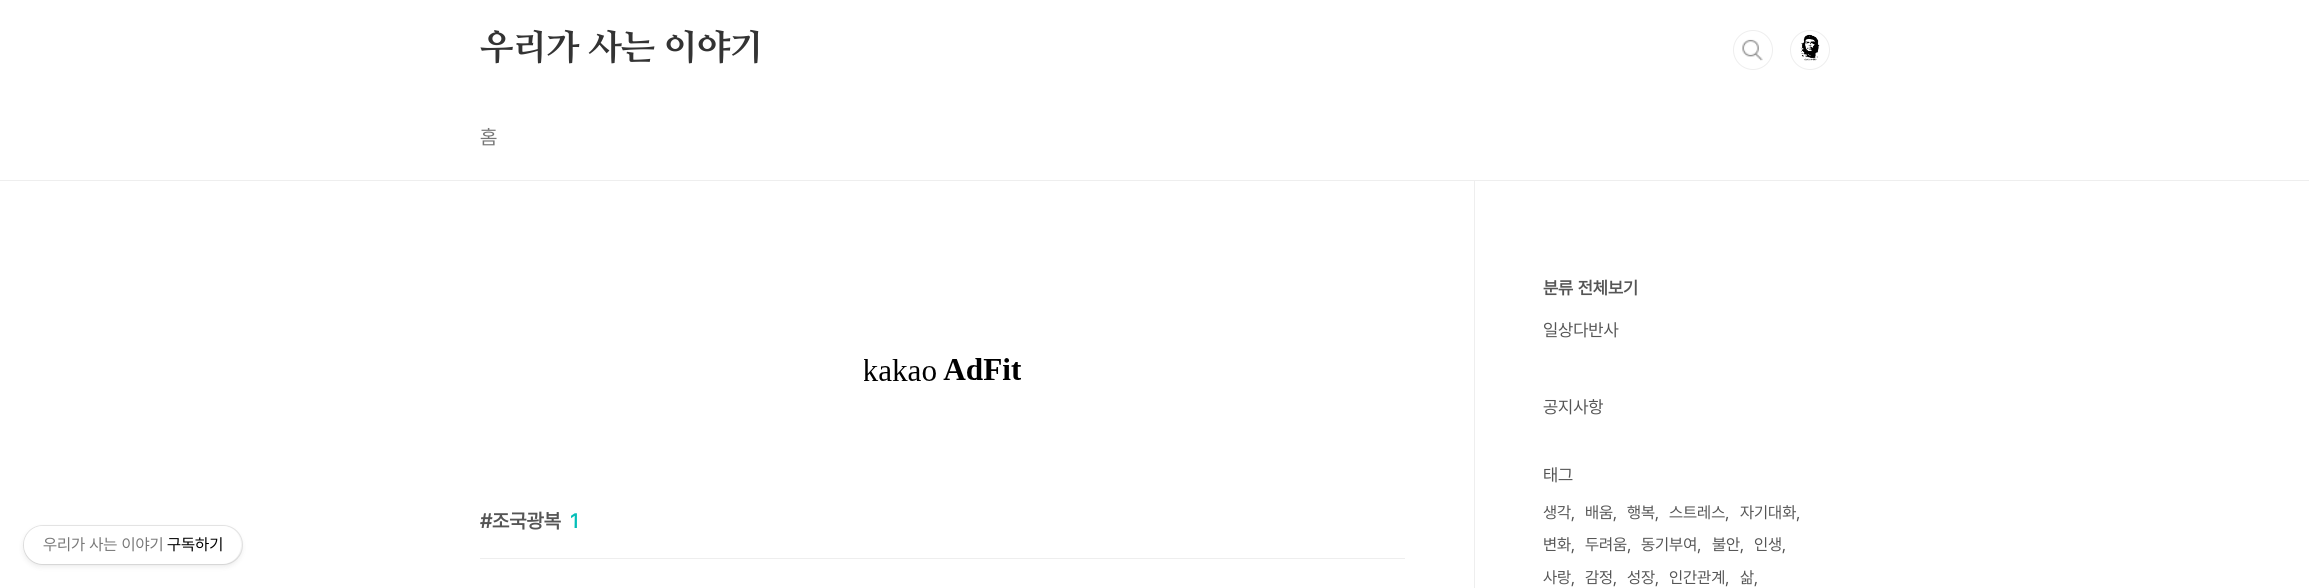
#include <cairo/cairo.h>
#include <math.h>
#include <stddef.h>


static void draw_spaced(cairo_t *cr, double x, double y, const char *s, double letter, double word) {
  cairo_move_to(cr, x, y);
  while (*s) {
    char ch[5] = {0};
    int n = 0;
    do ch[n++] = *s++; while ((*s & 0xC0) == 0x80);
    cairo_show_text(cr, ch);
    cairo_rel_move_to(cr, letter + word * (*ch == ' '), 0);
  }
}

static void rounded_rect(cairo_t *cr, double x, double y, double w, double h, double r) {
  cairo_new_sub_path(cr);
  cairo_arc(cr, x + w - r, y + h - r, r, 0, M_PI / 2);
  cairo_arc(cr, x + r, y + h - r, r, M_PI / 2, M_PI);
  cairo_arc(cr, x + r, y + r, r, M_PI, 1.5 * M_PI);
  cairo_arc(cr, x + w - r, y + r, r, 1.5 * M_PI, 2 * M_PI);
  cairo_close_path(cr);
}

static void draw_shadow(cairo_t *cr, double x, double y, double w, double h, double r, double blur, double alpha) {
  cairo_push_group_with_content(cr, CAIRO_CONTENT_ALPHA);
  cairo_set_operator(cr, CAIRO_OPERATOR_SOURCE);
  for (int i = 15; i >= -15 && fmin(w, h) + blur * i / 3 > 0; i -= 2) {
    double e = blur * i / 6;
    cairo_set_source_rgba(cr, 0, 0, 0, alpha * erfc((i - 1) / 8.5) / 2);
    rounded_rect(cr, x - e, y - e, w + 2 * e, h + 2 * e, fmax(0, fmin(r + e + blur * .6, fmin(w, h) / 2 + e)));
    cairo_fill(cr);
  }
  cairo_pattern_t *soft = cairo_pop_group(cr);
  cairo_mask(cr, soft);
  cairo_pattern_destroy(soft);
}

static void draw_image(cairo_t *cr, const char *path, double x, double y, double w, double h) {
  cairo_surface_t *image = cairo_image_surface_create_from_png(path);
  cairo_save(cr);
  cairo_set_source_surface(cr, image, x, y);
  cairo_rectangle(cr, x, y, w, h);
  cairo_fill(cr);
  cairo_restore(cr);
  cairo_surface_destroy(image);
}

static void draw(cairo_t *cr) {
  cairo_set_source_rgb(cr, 1, 1, 1);
  cairo_paint(cr);
  cairo_set_source_rgb(cr, 0, 0, 0);
  draw_shadow(cr, 24, 529, 217, 37, 18.5, 3, 0.1);
  rounded_rect(cr, 23.5, 525.5, 219, 39, 19.5);
  cairo_set_source_rgba(cr, 0, 0, 0, 0.1);
  cairo_set_line_width(cr, 1);
  cairo_stroke(cr);
  cairo_set_source_rgb(cr, 1, 1, 1);
  rounded_rect(cr, 24, 526, 217, 38, 19);
  cairo_fill(cr);
  cairo_set_source_rgb(cr, 238 / 255.0, 238 / 255.0, 238 / 255.0);
  cairo_rectangle(cr, 0, 180, 2309, 1);
  cairo_fill(cr);
  rounded_rect(cr, 1734.5, 31.5, 36, 37, 18);
  cairo_stroke(cr);
  cairo_set_source_rgb(cr, 1, 1, 1);
  cairo_arc(cr, 1753, 50, 20, 0, 2 * M_PI);
  cairo_fill(cr);
  draw_image(cr, "images/1.png", 1742, 39, 21, 22);
  cairo_arc(cr, 1753, 50, 19.5, 0, 2 * M_PI);
  cairo_set_source_rgb(cr, 238 / 255.0, 238 / 255.0, 238 / 255.0);
  cairo_stroke(cr);
  cairo_arc(cr, 1810, 50, 19.5, 0, 2 * M_PI);
  cairo_stroke(cr);
  draw_image(cr, "images/2.png", 1800, 34, 20, 27);
  draw_image(cr, "images/3.png", 864, 358, 157, 23);
  cairo_rectangle(cr, 480, 558, 925, 1);
  cairo_fill(cr);
  cairo_rectangle(cr, 1474, 181, 1, 407);
  cairo_fill(cr);
  cairo_select_font_face(cr, "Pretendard", CAIRO_FONT_SLANT_NORMAL, CAIRO_FONT_WEIGHT_NORMAL);
  cairo_set_font_size(cr, 16.25);
  cairo_set_source_rgb(cr, 119 / 255.0, 119 / 255.0, 119 / 255.0);
  cairo_move_to(cr, 43, 550);
  cairo_show_text(cr, "우리가 사는 이야기");
  cairo_set_source_rgb(cr, 0, 0, 0);
  cairo_move_to(cr, 167, 550);
  cairo_show_text(cr, "구독하기");
  cairo_select_font_face(cr, "NanumMyeongjo ExtraBold", CAIRO_FONT_SLANT_NORMAL, CAIRO_FONT_WEIGHT_NORMAL);
  cairo_set_font_size(cr, 35);
  cairo_set_source_rgb(cr, 51 / 255.0, 51 / 255.0, 51 / 255.0);
  draw_spaced(cr, 480, 59, "우리가 사는 이야기", -0.25, 0);
  cairo_select_font_face(cr, "Pretendard", CAIRO_FONT_SLANT_NORMAL, CAIRO_FONT_WEIGHT_NORMAL);
  cairo_set_font_size(cr, 20);
  cairo_set_source_rgb(cr, 119 / 255.0, 119 / 255.0, 119 / 255.0);
  cairo_move_to(cr, 480, 144);
  cairo_show_text(cr, "홈");
  cairo_select_font_face(cr, "Pretendard", CAIRO_FONT_SLANT_NORMAL, CAIRO_FONT_WEIGHT_BOLD);
  cairo_set_source_rgb(cr, 85 / 255.0, 85 / 255.0, 85 / 255.0);
  cairo_move_to(cr, 480, 528);
  cairo_show_text(cr, "#조국광복");
  cairo_set_source_rgb(cr, 4 / 255.0, 190 / 255.0, 184 / 255.0);
  cairo_move_to(cr, 570, 528);
  cairo_show_text(cr, "1");
  cairo_set_font_size(cr, 17.5);
  cairo_set_source_rgb(cr, 85 / 255.0, 85 / 255.0, 85 / 255.0);
  cairo_move_to(cr, 1543, 294);
  cairo_show_text(cr, "분류 전체보기");
  cairo_select_font_face(cr, "Pretendard", CAIRO_FONT_SLANT_NORMAL, CAIRO_FONT_WEIGHT_NORMAL);
  cairo_move_to(cr, 1543, 336);
  cairo_show_text(cr, "일상다반사");
  cairo_move_to(cr, 1543, 413);
  cairo_show_text(cr, "공지사항");
  cairo_move_to(cr, 1543, 481);
  cairo_show_text(cr, "태그");
  cairo_set_font_size(cr, 16.25);
  cairo_move_to(cr, 1543, 518);
  cairo_show_text(cr, "생각,");
  cairo_move_to(cr, 1585, 518);
  cairo_show_text(cr, "배움,");
  cairo_move_to(cr, 1627, 518);
  cairo_show_text(cr, "행복,");
  cairo_move_to(cr, 1669, 518);
  cairo_show_text(cr, "스트레스,");
  cairo_move_to(cr, 1740, 518);
  cairo_show_text(cr, "자기대화,");
  cairo_move_to(cr, 1543, 550);
  cairo_show_text(cr, "변화,");
  cairo_move_to(cr, 1585, 550);
  cairo_show_text(cr, "두려움,");
  cairo_move_to(cr, 1641, 550);
  cairo_show_text(cr, "동기부여,");
  cairo_move_to(cr, 1712, 550);
  cairo_show_text(cr, "불안,");
  cairo_move_to(cr, 1754, 550);
  cairo_show_text(cr, "인생,");
  cairo_move_to(cr, 1543, 583);
  cairo_show_text(cr, "사랑,");
  cairo_move_to(cr, 1585, 583);
  cairo_show_text(cr, "감정,");
  cairo_move_to(cr, 1627, 583);
  cairo_show_text(cr, "성장,");
  cairo_move_to(cr, 1669, 583);
  cairo_show_text(cr, "인간관계,");
  cairo_move_to(cr, 1740, 583);
  cairo_show_text(cr, "삶,");
}

int main(void) {
  cairo_surface_t *surface = cairo_image_surface_create(CAIRO_FORMAT_RGB24, 2309, 588);
  cairo_t *cr = cairo_create(surface);
  cairo_font_options_t *options = cairo_font_options_create();
  cairo_font_options_set_hint_metrics(options, CAIRO_HINT_METRICS_OFF);
  cairo_font_options_set_hint_style(options, CAIRO_HINT_STYLE_NONE);
  cairo_set_font_options(cr, options);
  cairo_set_miter_limit(cr, 4);
  draw(cr);
  cairo_surface_write_to_png(surface, "out.png");
  cairo_font_options_destroy(options);
  cairo_destroy(cr);
  cairo_surface_destroy(surface);
  return 0;
}
